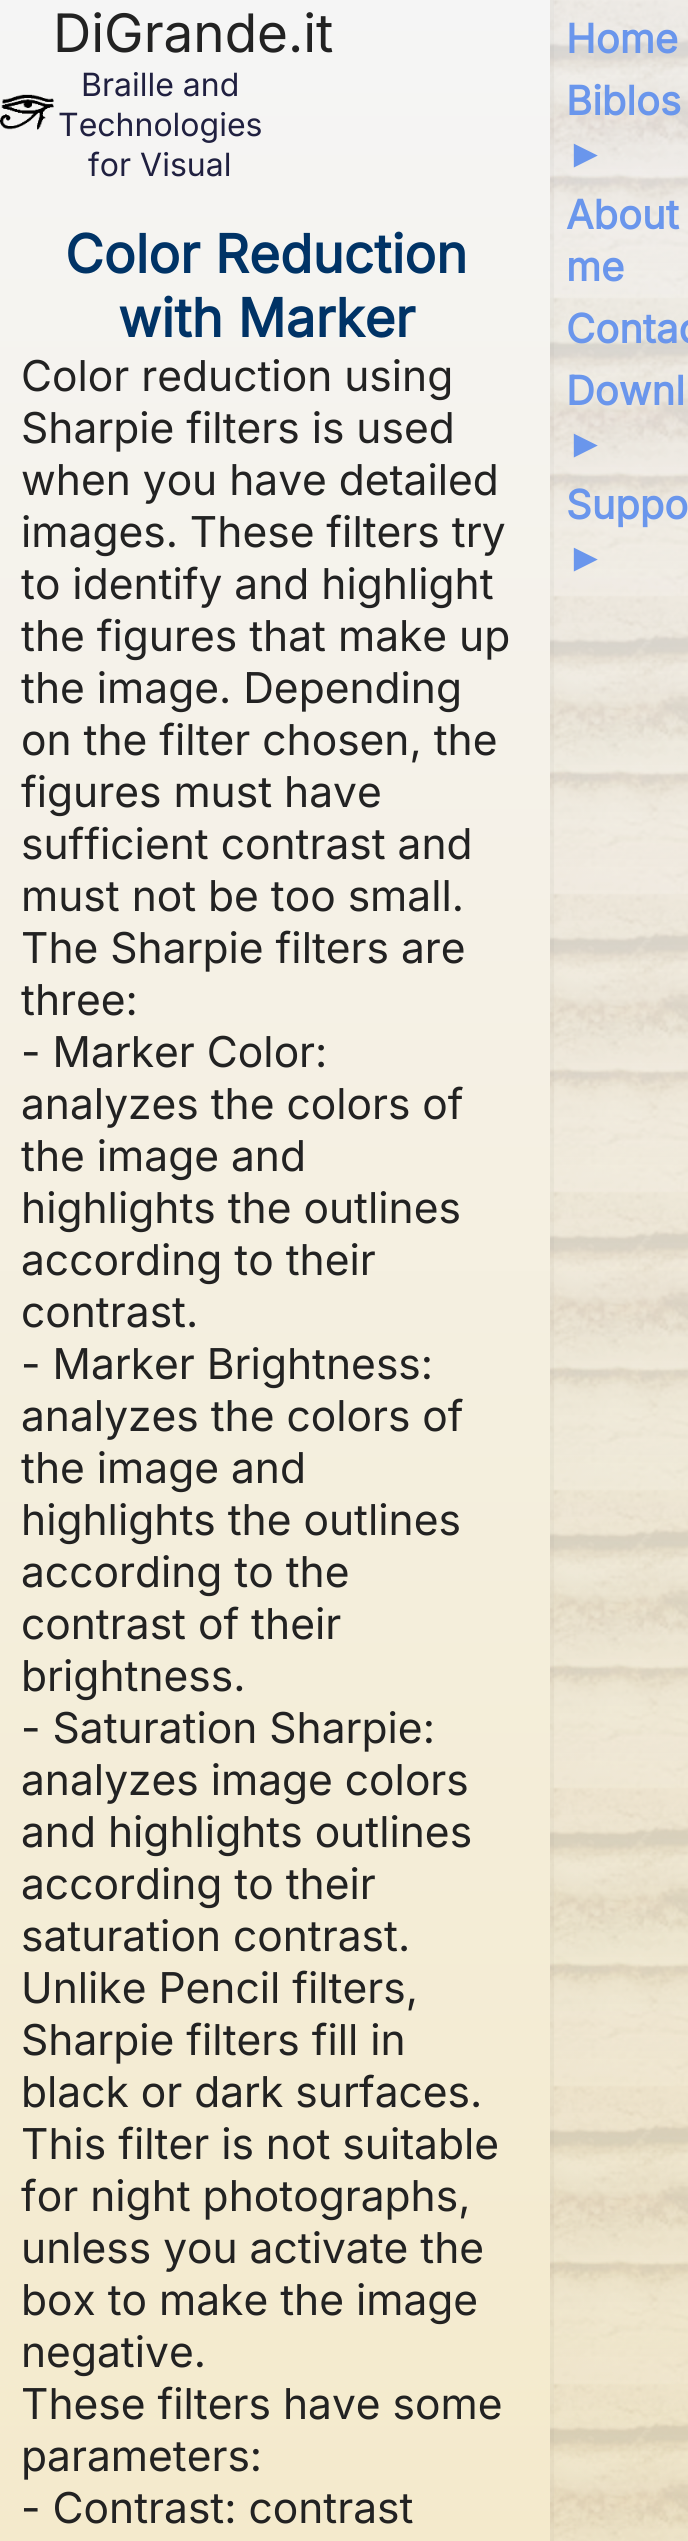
#include <cairo/cairo.h>
#include <math.h>
#include <stddef.h>


static void draw_image(cairo_t *cr, const char *path, double x, double y, double w, double h) {
  cairo_surface_t *image = cairo_image_surface_create_from_png(path);
  cairo_save(cr);
  cairo_set_source_surface(cr, image, x, y);
  cairo_rectangle(cr, x, y, w, h);
  cairo_fill(cr);
  cairo_restore(cr);
  cairo_surface_destroy(image);
}

static void draw(cairo_t *cr) {
  cairo_pattern_t *gradient;
  cairo_set_source_rgb(cr, 1, 1, 1);
  cairo_paint(cr);
  gradient = cairo_pattern_create_linear(344, 0, 344, 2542);
  cairo_pattern_add_color_stop_rgba(gradient, 0, 245 / 255.0, 245 / 255.0, 245 / 255.0, 1);
  cairo_pattern_add_color_stop_rgba(gradient, 1, 244 / 255.0, 234 / 255.0, 204 / 255.0, 1);
  cairo_set_source(cr, gradient);
  cairo_pattern_destroy(gradient);
  cairo_rectangle(cr, 0, 0, 688, 2541);
  cairo_fill(cr);
  draw_image(cr, "images/1.png", 0, 94, 54, 36);
  draw_image(cr, "images/2.png", 550, 0, 138, 2541);
  cairo_set_source_rgba(cr, 13 / 255.0, 13 / 255.0, 13 / 255.0, 0.03);
  cairo_rectangle(cr, 550, 0, 4, 2541);
  cairo_fill(cr);
  cairo_select_font_face(cr, "Inter", CAIRO_FONT_SLANT_NORMAL, CAIRO_FONT_WEIGHT_NORMAL);
  cairo_set_font_size(cr, 53);
  cairo_set_source_rgb(cr, 34 / 255.0, 34 / 255.0, 34 / 255.0);
  cairo_move_to(cr, 53, 52);
  cairo_show_text(cr, "DiGrande.it");
  cairo_set_font_size(cr, 32);
  cairo_set_source_rgb(cr, 32 / 255.0, 32 / 255.0, 64 / 255.0);
  cairo_move_to(cr, 81, 96);
  cairo_show_text(cr, "Braille and");
  cairo_move_to(cr, 58, 136);
  cairo_show_text(cr, "Technologies");
  cairo_move_to(cr, 88, 176);
  cairo_show_text(cr, "for Visual");
  cairo_select_font_face(cr, "Inter", CAIRO_FONT_SLANT_NORMAL, CAIRO_FONT_WEIGHT_BOLD);
  cairo_set_font_size(cr, 40);
  cairo_set_source_rgb(cr, 106 / 255.0, 150 / 255.0, 236 / 255.0);
  cairo_move_to(cr, 566, 53);
  cairo_show_text(cr, "Home");
  cairo_move_to(cr, 566, 115);
  cairo_show_text(cr, "Biblos");
  cairo_select_font_face(cr, "Liberation Sans", CAIRO_FONT_SLANT_NORMAL, CAIRO_FONT_WEIGHT_BOLD);
  cairo_move_to(cr, 566, 167);
  cairo_show_text(cr, "►");
  cairo_select_font_face(cr, "Inter", CAIRO_FONT_SLANT_NORMAL, CAIRO_FONT_WEIGHT_BOLD);
  cairo_move_to(cr, 566, 229);
  cairo_show_text(cr, "About");
  cairo_move_to(cr, 566, 281);
  cairo_show_text(cr, "me");
  cairo_move_to(cr, 566, 343);
  cairo_show_text(cr, "Contac");
  cairo_move_to(cr, 566, 405);
  cairo_show_text(cr, "Downl");
  cairo_select_font_face(cr, "Liberation Sans", CAIRO_FONT_SLANT_NORMAL, CAIRO_FONT_WEIGHT_BOLD);
  cairo_move_to(cr, 566, 457);
  cairo_show_text(cr, "►");
  cairo_select_font_face(cr, "Inter", CAIRO_FONT_SLANT_NORMAL, CAIRO_FONT_WEIGHT_BOLD);
  cairo_move_to(cr, 566, 519);
  cairo_show_text(cr, "Suppo");
  cairo_select_font_face(cr, "Liberation Sans", CAIRO_FONT_SLANT_NORMAL, CAIRO_FONT_WEIGHT_BOLD);
  cairo_move_to(cr, 566, 571);
  cairo_show_text(cr, "►");
  cairo_select_font_face(cr, "Inter", CAIRO_FONT_SLANT_NORMAL, CAIRO_FONT_WEIGHT_BOLD);
  cairo_set_font_size(cr, 53);
  cairo_set_source_rgb(cr, 0, 51 / 255.0, 102 / 255.0);
  cairo_move_to(cr, 65, 273);
  cairo_show_text(cr, "Color Reduction");
  cairo_move_to(cr, 118, 337);
  cairo_show_text(cr, "with Marker");
  cairo_select_font_face(cr, "Inter", CAIRO_FONT_SLANT_NORMAL, CAIRO_FONT_WEIGHT_NORMAL);
  cairo_set_font_size(cr, 42.5);
  cairo_set_source_rgb(cr, 34 / 255.0, 34 / 255.0, 34 / 255.0);
  cairo_move_to(cr, 21, 391);
  cairo_show_text(cr, "Color reduction using");
  cairo_move_to(cr, 21, 443);
  cairo_show_text(cr, "Sharpie filters is used");
  cairo_move_to(cr, 21, 495);
  cairo_show_text(cr, "when you have detailed");
  cairo_move_to(cr, 21, 547);
  cairo_show_text(cr, "images. These filters try");
  cairo_move_to(cr, 21, 599);
  cairo_show_text(cr, "to identify and highlight");
  cairo_move_to(cr, 21, 651);
  cairo_show_text(cr, "the figures that make up");
  cairo_move_to(cr, 21, 703);
  cairo_show_text(cr, "the image. Depending");
  cairo_move_to(cr, 21, 755);
  cairo_show_text(cr, "on the filter chosen, the");
  cairo_move_to(cr, 21, 807);
  cairo_show_text(cr, "figures must have");
  cairo_move_to(cr, 21, 859);
  cairo_show_text(cr, "sufficient contrast and");
  cairo_move_to(cr, 21, 911);
  cairo_show_text(cr, "must not be too small.");
  cairo_move_to(cr, 21, 963);
  cairo_show_text(cr, "The Sharpie filters are");
  cairo_move_to(cr, 21, 1015);
  cairo_show_text(cr, "three:");
  cairo_move_to(cr, 21, 1067);
  cairo_show_text(cr, "- Marker Color:");
  cairo_move_to(cr, 21, 1119);
  cairo_show_text(cr, "analyzes the colors of");
  cairo_move_to(cr, 21, 1171);
  cairo_show_text(cr, "the image and");
  cairo_move_to(cr, 21, 1223);
  cairo_show_text(cr, "highlights the outlines");
  cairo_move_to(cr, 21, 1275);
  cairo_show_text(cr, "according to their");
  cairo_move_to(cr, 21, 1327);
  cairo_show_text(cr, "contrast.");
  cairo_move_to(cr, 21, 1379);
  cairo_show_text(cr, "- Marker Brightness:");
  cairo_move_to(cr, 21, 1431);
  cairo_show_text(cr, "analyzes the colors of");
  cairo_move_to(cr, 21, 1483);
  cairo_show_text(cr, "the image and");
  cairo_move_to(cr, 21, 1535);
  cairo_show_text(cr, "highlights the outlines");
  cairo_move_to(cr, 21, 1587);
  cairo_show_text(cr, "according to the");
  cairo_move_to(cr, 21, 1639);
  cairo_show_text(cr, "contrast of their");
  cairo_move_to(cr, 21, 1691);
  cairo_show_text(cr, "brightness.");
  cairo_move_to(cr, 21, 1743);
  cairo_show_text(cr, "- Saturation Sharpie:");
  cairo_move_to(cr, 21, 1795);
  cairo_show_text(cr, "analyzes image colors");
  cairo_move_to(cr, 21, 1847);
  cairo_show_text(cr, "and highlights outlines");
  cairo_move_to(cr, 21, 1899);
  cairo_show_text(cr, "according to their");
  cairo_move_to(cr, 21, 1951);
  cairo_show_text(cr, "saturation contrast.");
  cairo_move_to(cr, 21, 2003);
  cairo_show_text(cr, "Unlike Pencil filters,");
  cairo_move_to(cr, 21, 2055);
  cairo_show_text(cr, "Sharpie filters fill in");
  cairo_move_to(cr, 21, 2107);
  cairo_show_text(cr, "black or dark surfaces.");
  cairo_move_to(cr, 21, 2159);
  cairo_show_text(cr, "This filter is not suitable");
  cairo_move_to(cr, 21, 2211);
  cairo_show_text(cr, "for night photographs,");
  cairo_move_to(cr, 21, 2263);
  cairo_show_text(cr, "unless you activate the");
  cairo_move_to(cr, 21, 2315);
  cairo_show_text(cr, "box to make the image");
  cairo_move_to(cr, 21, 2367);
  cairo_show_text(cr, "negative.");
  cairo_move_to(cr, 21, 2419);
  cairo_show_text(cr, "These filters have some");
  cairo_move_to(cr, 21, 2471);
  cairo_show_text(cr, "parameters:");
  cairo_move_to(cr, 21, 2523);
  cairo_show_text(cr, "- Contrast: contrast");
}

int main(void) {
  cairo_surface_t *surface = cairo_image_surface_create(CAIRO_FORMAT_RGB24, 688, 2541);
  cairo_t *cr = cairo_create(surface);
  cairo_font_options_t *options = cairo_font_options_create();
  cairo_font_options_set_hint_metrics(options, CAIRO_HINT_METRICS_OFF);
  cairo_font_options_set_hint_style(options, CAIRO_HINT_STYLE_NONE);
  cairo_set_font_options(cr, options);
  cairo_set_miter_limit(cr, 4);
  draw(cr);
  cairo_surface_write_to_png(surface, "out.png");
  cairo_font_options_destroy(options);
  cairo_destroy(cr);
  cairo_surface_destroy(surface);
  return 0;
}
